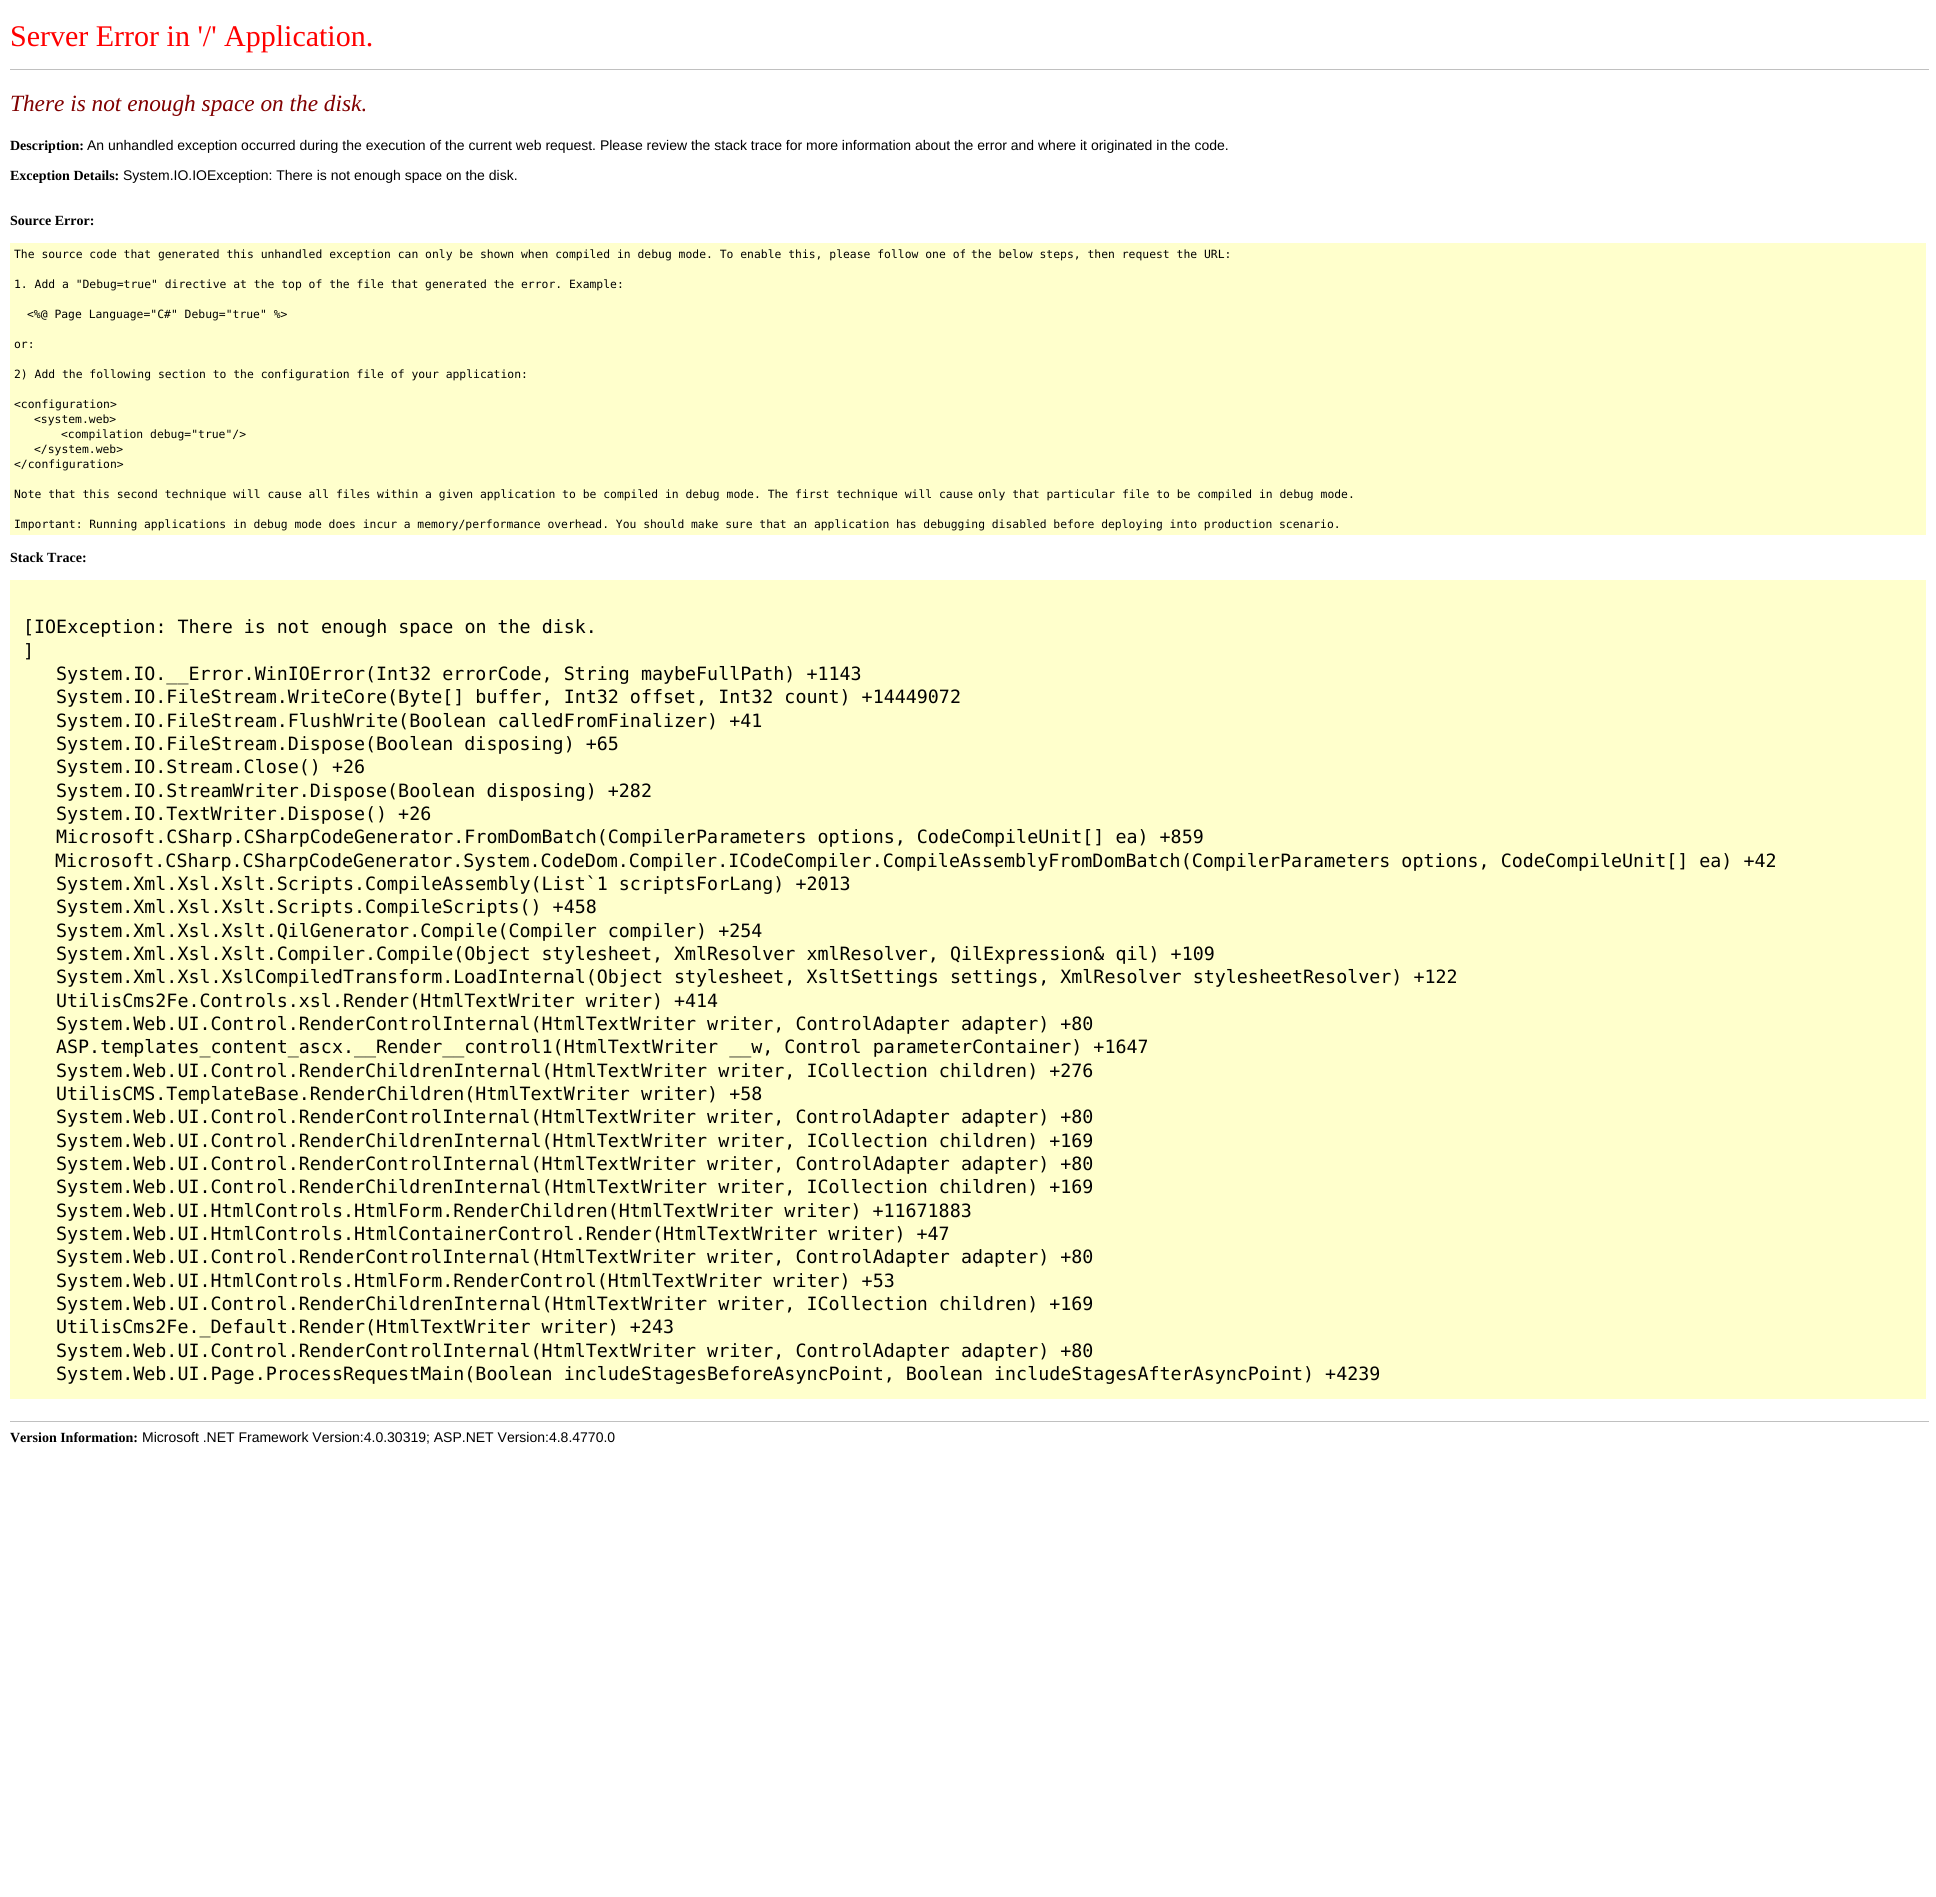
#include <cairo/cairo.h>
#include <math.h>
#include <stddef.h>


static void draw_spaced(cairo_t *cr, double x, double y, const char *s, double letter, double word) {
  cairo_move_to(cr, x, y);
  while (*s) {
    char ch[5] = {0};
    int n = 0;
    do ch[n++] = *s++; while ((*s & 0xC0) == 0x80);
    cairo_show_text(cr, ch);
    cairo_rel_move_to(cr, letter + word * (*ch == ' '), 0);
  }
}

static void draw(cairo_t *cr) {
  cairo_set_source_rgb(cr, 1, 1, 1);
  cairo_paint(cr);
  cairo_set_source_rgb(cr, 192 / 255.0, 192 / 255.0, 192 / 255.0);
  cairo_rectangle(cr, 10, 69, 1919, 1);
  cairo_fill(cr);
  cairo_set_source_rgb(cr, 1, 1, 204 / 255.0);
  cairo_rectangle(cr, 10, 243, 1916, 292);
  cairo_fill(cr);
  cairo_rectangle(cr, 10, 580, 1916, 819);
  cairo_fill(cr);
  cairo_set_source_rgb(cr, 192 / 255.0, 192 / 255.0, 192 / 255.0);
  cairo_rectangle(cr, 10, 1421, 1919, 1);
  cairo_fill(cr);
  cairo_select_font_face(cr, "Liberation Serif", CAIRO_FONT_SLANT_NORMAL, CAIRO_FONT_WEIGHT_NORMAL);
  cairo_set_font_size(cr, 30);
  cairo_set_source_rgb(cr, 1, 0, 0);
  cairo_move_to(cr, 10, 46);
  cairo_show_text(cr, "Server Error in '/' Application.");
  cairo_select_font_face(cr, "Liberation Serif", CAIRO_FONT_SLANT_ITALIC, CAIRO_FONT_WEIGHT_NORMAL);
  cairo_set_font_size(cr, 23.3);
  cairo_set_source_rgb(cr, 128 / 255.0, 0, 0);
  cairo_move_to(cr, 10, 111);
  cairo_show_text(cr, "There is not enough space on the disk.");
  cairo_select_font_face(cr, "Liberation Serif", CAIRO_FONT_SLANT_NORMAL, CAIRO_FONT_WEIGHT_BOLD);
  cairo_set_font_size(cr, 14);
  cairo_set_source_rgb(cr, 0, 0, 0);
  cairo_move_to(cr, 10, 150);
  cairo_show_text(cr, "Description:");
  cairo_select_font_face(cr, "Liberation Sans", CAIRO_FONT_SLANT_NORMAL, CAIRO_FONT_WEIGHT_NORMAL);
  cairo_move_to(cr, 87, 150);
  cairo_show_text(cr, "An unhandled exception occurred during the execution of the current web request. Please review the stack trace for more information about the error and where it originated in the code.");
  cairo_select_font_face(cr, "Liberation Serif", CAIRO_FONT_SLANT_NORMAL, CAIRO_FONT_WEIGHT_BOLD);
  cairo_move_to(cr, 10, 180);
  cairo_show_text(cr, "Exception Details:");
  cairo_select_font_face(cr, "Liberation Sans", CAIRO_FONT_SLANT_NORMAL, CAIRO_FONT_WEIGHT_NORMAL);
  cairo_move_to(cr, 123, 180);
  cairo_show_text(cr, "System.IO.IOException: There is not enough space on the disk.");
  cairo_select_font_face(cr, "Liberation Serif", CAIRO_FONT_SLANT_NORMAL, CAIRO_FONT_WEIGHT_BOLD);
  cairo_move_to(cr, 10, 225);
  cairo_show_text(cr, "Source Error:");
  cairo_select_font_face(cr, "DejaVu Sans Mono", CAIRO_FONT_SLANT_NORMAL, CAIRO_FONT_WEIGHT_NORMAL);
  cairo_set_font_size(cr, 11.38);
  cairo_move_to(cr, 14, 258);
  cairo_show_text(cr, "The source code that generated this unhandled exception can only be shown when compiled in debug mode. To enable this, please follow one of");
  cairo_move_to(cr, 971, 258);
  cairo_show_text(cr, "the below steps, then request the URL:");
  cairo_move_to(cr, 14, 288);
  cairo_show_text(cr, "1. Add a \"Debug=true\" directive at the top of the file that generated the error. Example:");
  cairo_move_to(cr, 27, 318);
  cairo_show_text(cr, "<%@ Page Language=\"C#\" Debug=\"true\" %>");
  cairo_move_to(cr, 14, 348);
  cairo_show_text(cr, "or:");
  cairo_move_to(cr, 14, 378);
  cairo_show_text(cr, "2) Add the following section to the configuration file of your application:");
  cairo_move_to(cr, 14, 408);
  cairo_show_text(cr, "<configuration>");
  cairo_move_to(cr, 34, 423);
  cairo_show_text(cr, "<system.web>");
  cairo_move_to(cr, 61, 438);
  cairo_show_text(cr, "<compilation debug=\"true\"/>");
  cairo_move_to(cr, 34, 453);
  cairo_show_text(cr, "</system.web>");
  cairo_move_to(cr, 14, 468);
  cairo_show_text(cr, "</configuration>");
  cairo_move_to(cr, 14, 498);
  cairo_show_text(cr, "Note that this second technique will cause all files within a given application to be compiled in debug mode. The first technique will cause");
  cairo_move_to(cr, 978, 498);
  cairo_show_text(cr, "only that particular file to be compiled in debug mode.");
  draw_spaced(cr, 14, 528, "Important: Running applications in debug mode does incur a memory/performance overhead. You should make sure that an application has debugging disabled before deploying into production scenario.", 0, -0.1);
  cairo_select_font_face(cr, "Liberation Serif", CAIRO_FONT_SLANT_NORMAL, CAIRO_FONT_WEIGHT_BOLD);
  cairo_set_font_size(cr, 14);
  cairo_move_to(cr, 10, 562);
  cairo_show_text(cr, "Stack Trace:");
  cairo_select_font_face(cr, "DejaVu Sans Mono", CAIRO_FONT_SLANT_NORMAL, CAIRO_FONT_WEIGHT_NORMAL);
  cairo_set_font_size(cr, 18.33);
  cairo_move_to(cr, 23, 633);
  cairo_show_text(cr, "[IOException: There is not enough space on the disk.");
  cairo_move_to(cr, 23, 657);
  cairo_show_text(cr, "]");
  cairo_move_to(cr, 56, 680);
  cairo_show_text(cr, "System.IO.__Error.WinIOError(Int32 errorCode, String maybeFullPath) +1143");
  cairo_move_to(cr, 56, 703);
  cairo_show_text(cr, "System.IO.FileStream.WriteCore(Byte[] buffer, Int32 offset, Int32 count) +14449072");
  cairo_move_to(cr, 56, 727);
  cairo_show_text(cr, "System.IO.FileStream.FlushWrite(Boolean calledFromFinalizer) +41");
  cairo_move_to(cr, 56, 750);
  cairo_show_text(cr, "System.IO.FileStream.Dispose(Boolean disposing) +65");
  cairo_move_to(cr, 56, 773);
  cairo_show_text(cr, "System.IO.Stream.Close() +26");
  cairo_move_to(cr, 56, 797);
  cairo_show_text(cr, "System.IO.StreamWriter.Dispose(Boolean disposing) +282");
  cairo_move_to(cr, 56, 820);
  cairo_show_text(cr, "System.IO.TextWriter.Dispose() +26");
  cairo_move_to(cr, 56, 843);
  cairo_show_text(cr, "Microsoft.CSharp.CSharpCodeGenerator.FromDomBatch(CompilerParameters options, CodeCompileUnit[] ea) +859");
  cairo_move_to(cr, 55, 867);
  cairo_show_text(cr, "Microsoft.CSharp.CSharpCodeGenerator.System.CodeDom.Compiler.ICodeCompiler.CompileAssemblyFromDomBatch(CompilerParameters options, CodeCompileUnit[] ea) +42");
  cairo_move_to(cr, 56, 890);
  cairo_show_text(cr, "System.Xml.Xsl.Xslt.Scripts.CompileAssembly(List`1 scriptsForLang) +2013");
  cairo_move_to(cr, 56, 913);
  cairo_show_text(cr, "System.Xml.Xsl.Xslt.Scripts.CompileScripts() +458");
  cairo_move_to(cr, 56, 937);
  cairo_show_text(cr, "System.Xml.Xsl.Xslt.QilGenerator.Compile(Compiler compiler) +254");
  cairo_move_to(cr, 56, 960);
  cairo_show_text(cr, "System.Xml.Xsl.Xslt.Compiler.Compile(Object stylesheet, XmlResolver xmlResolver, QilExpression& qil) +109");
  cairo_move_to(cr, 56, 983);
  cairo_show_text(cr, "System.Xml.Xsl.XslCompiledTransform.LoadInternal(Object stylesheet, XsltSettings settings, XmlResolver stylesheetResolver) +122");
  cairo_move_to(cr, 56, 1007);
  cairo_show_text(cr, "UtilisCms2Fe.Controls.xsl.Render(HtmlTextWriter writer) +414");
  cairo_move_to(cr, 56, 1030);
  cairo_show_text(cr, "System.Web.UI.Control.RenderControlInternal(HtmlTextWriter writer, ControlAdapter adapter) +80");
  cairo_move_to(cr, 56, 1053);
  cairo_show_text(cr, "ASP.templates_content_ascx.__Render__control1(HtmlTextWriter __w, Control parameterContainer) +1647");
  cairo_move_to(cr, 56, 1077);
  cairo_show_text(cr, "System.Web.UI.Control.RenderChildrenInternal(HtmlTextWriter writer, ICollection children) +276");
  cairo_move_to(cr, 56, 1100);
  cairo_show_text(cr, "UtilisCMS.TemplateBase.RenderChildren(HtmlTextWriter writer) +58");
  cairo_move_to(cr, 56, 1123);
  cairo_show_text(cr, "System.Web.UI.Control.RenderControlInternal(HtmlTextWriter writer, ControlAdapter adapter) +80");
  cairo_move_to(cr, 56, 1147);
  cairo_show_text(cr, "System.Web.UI.Control.RenderChildrenInternal(HtmlTextWriter writer, ICollection children) +169");
  cairo_move_to(cr, 56, 1170);
  cairo_show_text(cr, "System.Web.UI.Control.RenderControlInternal(HtmlTextWriter writer, ControlAdapter adapter) +80");
  cairo_move_to(cr, 56, 1193);
  cairo_show_text(cr, "System.Web.UI.Control.RenderChildrenInternal(HtmlTextWriter writer, ICollection children) +169");
  draw_spaced(cr, 56, 1217, "System.Web.UI.HtmlControls.HtmlForm.RenderChildren(HtmlTextWriter writer) +11671883", 0, -0.1);
  draw_spaced(cr, 56, 1240, "System.Web.UI.HtmlControls.HtmlContainerControl.Render(HtmlTextWriter writer) +47", 0, -0.1);
  cairo_move_to(cr, 56, 1263);
  cairo_show_text(cr, "System.Web.UI.Control.RenderControlInternal(HtmlTextWriter writer, ControlAdapter adapter) +80");
  cairo_move_to(cr, 56, 1287);
  cairo_show_text(cr, "System.Web.UI.HtmlControls.HtmlForm.RenderControl(HtmlTextWriter writer) +53");
  cairo_move_to(cr, 56, 1310);
  cairo_show_text(cr, "System.Web.UI.Control.RenderChildrenInternal(HtmlTextWriter writer, ICollection children) +169");
  cairo_move_to(cr, 56, 1333);
  cairo_show_text(cr, "UtilisCms2Fe._Default.Render(HtmlTextWriter writer) +243");
  cairo_move_to(cr, 56, 1357);
  cairo_show_text(cr, "System.Web.UI.Control.RenderControlInternal(HtmlTextWriter writer, ControlAdapter adapter) +80");
  cairo_move_to(cr, 56, 1380);
  cairo_show_text(cr, "System.Web.UI.Page.ProcessRequestMain(Boolean includeStagesBeforeAsyncPoint, Boolean includeStagesAfterAsyncPoint) +4239");
  cairo_select_font_face(cr, "Liberation Serif", CAIRO_FONT_SLANT_NORMAL, CAIRO_FONT_WEIGHT_BOLD);
  cairo_set_font_size(cr, 14);
  cairo_move_to(cr, 10, 1442);
  cairo_show_text(cr, "Version Information:");
  cairo_select_font_face(cr, "Liberation Sans", CAIRO_FONT_SLANT_NORMAL, CAIRO_FONT_WEIGHT_NORMAL);
  cairo_move_to(cr, 142, 1442);
  cairo_show_text(cr, "Microsoft .NET Framework Version:4.0.30319; ASP.NET Version:4.8.4770.0");
}

int main(void) {
  cairo_surface_t *surface = cairo_image_surface_create(CAIRO_FORMAT_RGB24, 1936, 1897);
  cairo_t *cr = cairo_create(surface);
  cairo_font_options_t *options = cairo_font_options_create();
  cairo_font_options_set_hint_metrics(options, CAIRO_HINT_METRICS_OFF);
  cairo_font_options_set_hint_style(options, CAIRO_HINT_STYLE_NONE);
  cairo_set_font_options(cr, options);
  cairo_set_miter_limit(cr, 4);
  draw(cr);
  cairo_surface_write_to_png(surface, "out.png");
  cairo_font_options_destroy(options);
  cairo_destroy(cr);
  cairo_surface_destroy(surface);
  return 0;
}
